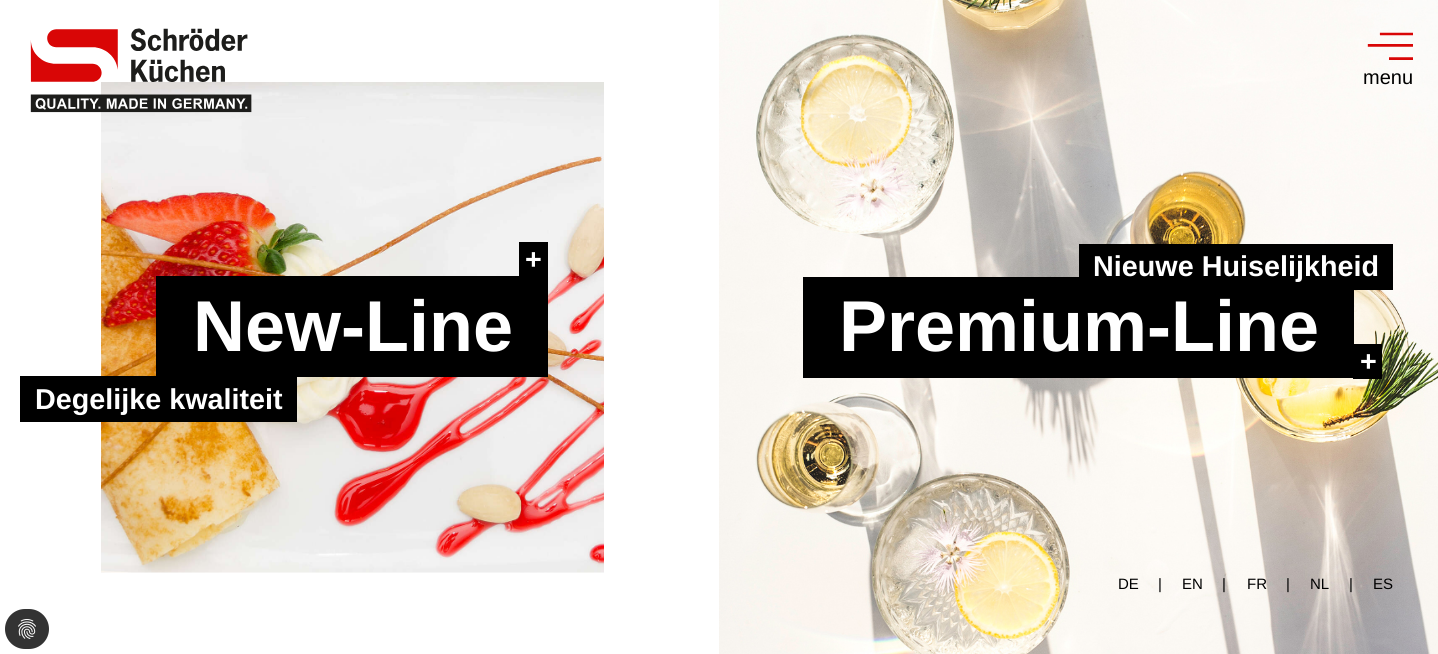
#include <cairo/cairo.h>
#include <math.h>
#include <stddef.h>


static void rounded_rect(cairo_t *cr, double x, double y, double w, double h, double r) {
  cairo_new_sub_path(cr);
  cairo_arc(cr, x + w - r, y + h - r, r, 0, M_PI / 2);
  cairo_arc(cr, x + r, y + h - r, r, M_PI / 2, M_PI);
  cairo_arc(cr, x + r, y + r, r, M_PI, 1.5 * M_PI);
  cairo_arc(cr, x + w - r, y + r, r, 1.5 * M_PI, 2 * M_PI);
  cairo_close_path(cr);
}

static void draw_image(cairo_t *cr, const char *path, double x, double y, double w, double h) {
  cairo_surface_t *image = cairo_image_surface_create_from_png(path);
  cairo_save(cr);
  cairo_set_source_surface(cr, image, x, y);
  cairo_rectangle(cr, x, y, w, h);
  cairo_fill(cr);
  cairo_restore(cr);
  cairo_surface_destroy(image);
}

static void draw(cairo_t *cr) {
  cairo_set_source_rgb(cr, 1, 1, 1);
  cairo_paint(cr);
  draw_image(cr, "images/3.png", 101, 82, 503, 491);
  draw_image(cr, "images/1.png", 30, 28, 222, 85);
  draw_image(cr, "images/4.png", 719, 0, 719, 654);
  draw_image(cr, "images/2.png", 1367, 32, 46, 28);
  cairo_set_source_rgb(cr, 0, 0, 0);
  cairo_rectangle(cr, 156, 276, 392, 101);
  cairo_fill(cr);
  cairo_rectangle(cr, 519, 242, 29, 34);
  cairo_fill(cr);
  cairo_rectangle(cr, 20, 376, 277, 46);
  cairo_fill(cr);
  cairo_rectangle(cr, 803, 277, 551, 101);
  cairo_fill(cr);
  cairo_rectangle(cr, 1079, 244, 314, 46);
  cairo_fill(cr);
  cairo_rectangle(cr, 1353, 344, 29, 35);
  cairo_fill(cr);
  cairo_set_source_rgb(cr, 51 / 255.0, 51 / 255.0, 51 / 255.0);
  rounded_rect(cr, 5, 609, 44, 40, 20);
  cairo_fill(cr);
  draw_image(cr, "images/5.png", 18, 619, 18, 20);
  cairo_select_font_face(cr, "Liberation Sans", CAIRO_FONT_SLANT_NORMAL, CAIRO_FONT_WEIGHT_NORMAL);
  cairo_set_font_size(cr, 20);
  cairo_set_source_rgb(cr, 0, 0, 0);
  cairo_move_to(cr, 1363, 84);
  cairo_show_text(cr, "menu");
  cairo_set_font_size(cr, 15);
  cairo_move_to(cr, 1118, 589);
  cairo_show_text(cr, "DE");
  cairo_move_to(cr, 1158, 589);
  cairo_show_text(cr, "|");
  cairo_move_to(cr, 1182, 589);
  cairo_show_text(cr, "EN");
  cairo_move_to(cr, 1222, 589);
  cairo_show_text(cr, "|");
  cairo_move_to(cr, 1247, 589);
  cairo_show_text(cr, "FR");
  cairo_move_to(cr, 1286, 589);
  cairo_show_text(cr, "|");
  cairo_move_to(cr, 1310, 589);
  cairo_show_text(cr, "NL");
  cairo_move_to(cr, 1349, 589);
  cairo_show_text(cr, "|");
  cairo_move_to(cr, 1373, 589);
  cairo_show_text(cr, "ES");
  cairo_select_font_face(cr, "Liberation Sans", CAIRO_FONT_SLANT_NORMAL, CAIRO_FONT_WEIGHT_BOLD);
  cairo_set_font_size(cr, 28.75);
  cairo_set_source_rgb(cr, 1, 1, 1);
  cairo_move_to(cr, 525, 269);
  cairo_show_text(cr, "+");
  cairo_set_font_size(cr, 72);
  cairo_move_to(cr, 193, 351);
  cairo_show_text(cr, "New-Line");
  cairo_set_font_size(cr, 28.75);
  cairo_move_to(cr, 35, 409);
  cairo_show_text(cr, "Degelijke kwaliteit");
  cairo_move_to(cr, 1093, 276);
  cairo_show_text(cr, "Nieuwe Huiselijkheid");
  cairo_set_font_size(cr, 72);
  cairo_move_to(cr, 839, 351);
  cairo_show_text(cr, "Premium-Line");
  cairo_set_font_size(cr, 28.75);
  cairo_move_to(cr, 1360, 371);
  cairo_show_text(cr, "+");
}

int main(void) {
  cairo_surface_t *surface = cairo_image_surface_create(CAIRO_FORMAT_RGB24, 1438, 654);
  cairo_t *cr = cairo_create(surface);
  cairo_font_options_t *options = cairo_font_options_create();
  cairo_font_options_set_hint_metrics(options, CAIRO_HINT_METRICS_OFF);
  cairo_font_options_set_hint_style(options, CAIRO_HINT_STYLE_NONE);
  cairo_set_font_options(cr, options);
  cairo_set_miter_limit(cr, 4);
  draw(cr);
  cairo_surface_write_to_png(surface, "out.png");
  cairo_font_options_destroy(options);
  cairo_destroy(cr);
  cairo_surface_destroy(surface);
  return 0;
}
